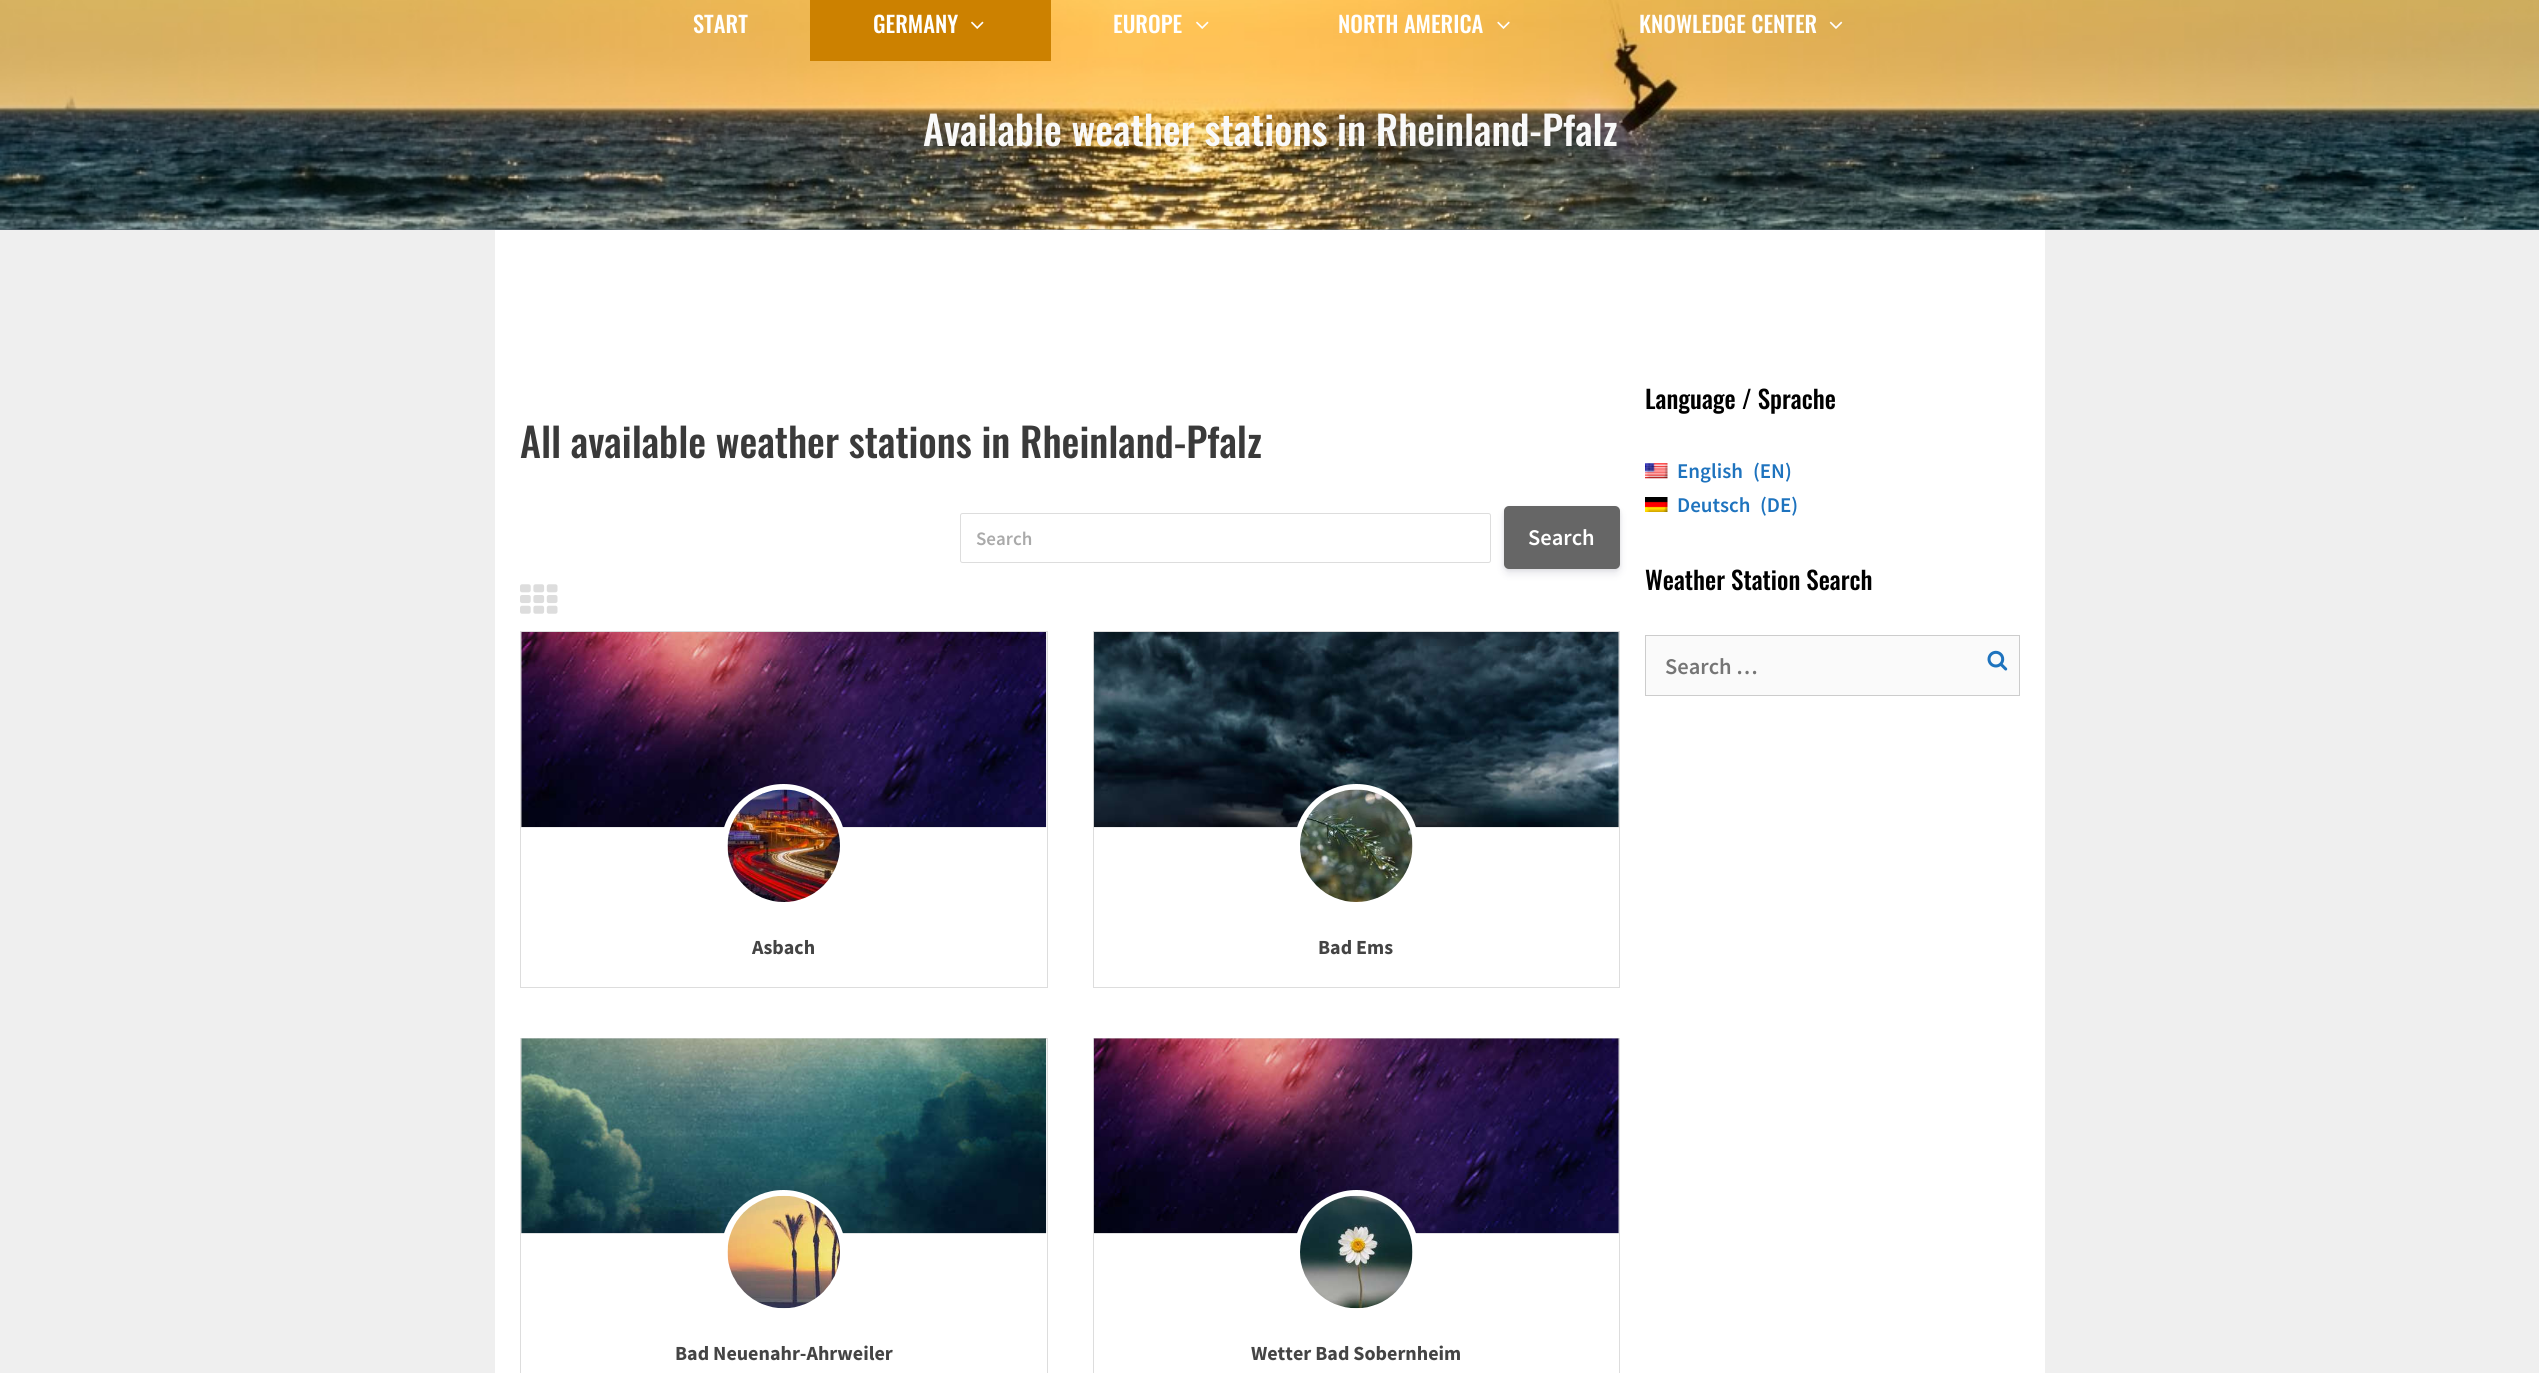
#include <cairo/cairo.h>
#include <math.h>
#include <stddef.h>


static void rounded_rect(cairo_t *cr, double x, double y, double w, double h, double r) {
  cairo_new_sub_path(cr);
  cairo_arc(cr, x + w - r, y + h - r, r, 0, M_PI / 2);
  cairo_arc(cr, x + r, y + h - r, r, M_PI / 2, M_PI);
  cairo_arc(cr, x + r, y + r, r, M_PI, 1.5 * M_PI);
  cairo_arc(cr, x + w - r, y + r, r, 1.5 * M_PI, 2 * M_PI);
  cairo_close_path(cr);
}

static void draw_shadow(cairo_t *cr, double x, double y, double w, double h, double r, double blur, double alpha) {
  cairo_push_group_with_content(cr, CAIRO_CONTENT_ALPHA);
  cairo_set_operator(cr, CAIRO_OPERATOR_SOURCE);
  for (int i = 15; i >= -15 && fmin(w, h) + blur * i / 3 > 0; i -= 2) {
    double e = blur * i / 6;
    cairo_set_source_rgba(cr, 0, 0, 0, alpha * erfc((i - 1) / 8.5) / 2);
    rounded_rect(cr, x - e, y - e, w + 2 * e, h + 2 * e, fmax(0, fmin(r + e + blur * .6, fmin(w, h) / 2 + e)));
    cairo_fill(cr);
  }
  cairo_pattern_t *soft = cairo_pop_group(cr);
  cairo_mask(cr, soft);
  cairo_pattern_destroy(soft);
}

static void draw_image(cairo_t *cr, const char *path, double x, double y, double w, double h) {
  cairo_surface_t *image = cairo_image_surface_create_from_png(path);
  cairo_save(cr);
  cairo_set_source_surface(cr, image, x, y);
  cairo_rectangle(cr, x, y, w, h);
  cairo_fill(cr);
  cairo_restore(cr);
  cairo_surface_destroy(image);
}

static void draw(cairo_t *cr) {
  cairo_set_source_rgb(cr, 239 / 255.0, 239 / 255.0, 239 / 255.0);
  cairo_paint(cr);
  cairo_set_source_rgb(cr, 104 / 255.0, 114 / 255.0, 126 / 255.0);
  cairo_rectangle(cr, 0, 229, 2539, 1);
  cairo_fill(cr);
  draw_image(cr, "images/5.png", 0, 0, 2539, 230);
  cairo_set_source_rgb(cr, 204 / 255.0, 129 / 255.0, 0);
  cairo_rectangle(cr, 810, 0, 241, 61);
  cairo_fill(cr);
  draw_image(cr, "images/1.png", 971, 21, 13, 8);
  draw_image(cr, "images/2.png", 1196, 21, 13, 8);
  draw_image(cr, "images/3.png", 1497, 21, 13, 8);
  draw_image(cr, "images/4.png", 1829, 21, 14, 8);
  cairo_set_source_rgb(cr, 1, 1, 1);
  cairo_rectangle(cr, 495, 230, 1550, 1143);
  cairo_fill(cr);
  rounded_rect(cr, 960.5, 513.5, 530, 49, 2);
  cairo_set_source_rgb(cr, 221 / 255.0, 221 / 255.0, 221 / 255.0);
  cairo_set_line_width(cr, 1);
  cairo_stroke(cr);
  cairo_set_source_rgb(cr, 0, 0, 0);
  draw_shadow(cr, 1504, 508, 116, 62, 5, 2, 0.08);
  cairo_set_source_rgb(cr, 50 / 255.0, 50 / 255.0, 93 / 255.0);
  draw_shadow(cr, 1504, 511, 116, 63, 5, 4, 0.11);
  cairo_set_source_rgb(cr, 102 / 255.0, 102 / 255.0, 102 / 255.0);
  rounded_rect(cr, 1504, 506, 116, 63, 5);
  cairo_fill(cr);
  draw_image(cr, "images/6.png", 520, 584, 38, 30);
  cairo_rectangle(cr, 520.5, 631.5, 527, 356);
  cairo_set_source_rgb(cr, 221 / 255.0, 221 / 255.0, 221 / 255.0);
  cairo_stroke(cr);
  cairo_set_source_rgb(cr, 238 / 255.0, 238 / 255.0, 238 / 255.0);
  cairo_rectangle(cr, 521, 633, 525, 195);
  cairo_fill(cr);
  draw_image(cr, "images/7.png", 521, 632, 526, 195);
  cairo_set_source_rgb(cr, 1, 1, 1);
  cairo_arc(cr, 783.5, 846.5, 59.5, 0, 2 * M_PI);
  cairo_fill_preserve(cr);
  cairo_set_line_width(cr, 6);
  cairo_stroke(cr);
  draw_image(cr, "images/8.png", 727, 789, 113, 113);
  cairo_rectangle(cr, 1093.5, 631.5, 526, 356);
  cairo_set_source_rgb(cr, 221 / 255.0, 221 / 255.0, 221 / 255.0);
  cairo_set_line_width(cr, 1);
  cairo_stroke(cr);
  cairo_set_source_rgb(cr, 238 / 255.0, 238 / 255.0, 238 / 255.0);
  cairo_rectangle(cr, 1094, 633, 525, 195);
  cairo_fill(cr);
  draw_image(cr, "images/9.png", 1093, 632, 526, 195);
  cairo_set_source_rgb(cr, 1, 1, 1);
  cairo_arc(cr, 1356.5, 846.5, 59.5, 0, 2 * M_PI);
  cairo_fill_preserve(cr);
  cairo_set_line_width(cr, 6);
  cairo_stroke(cr);
  draw_image(cr, "images/10.png", 1300, 789, 113, 113);
  cairo_rectangle(cr, 520.5, 1038.5, 527, 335);
  cairo_set_source_rgb(cr, 221 / 255.0, 221 / 255.0, 221 / 255.0);
  cairo_set_line_width(cr, 1);
  cairo_stroke(cr);
  cairo_set_source_rgb(cr, 238 / 255.0, 238 / 255.0, 238 / 255.0);
  cairo_rectangle(cr, 521, 1039, 525, 195);
  cairo_fill(cr);
  draw_image(cr, "images/11.png", 521, 1038, 526, 196);
  cairo_set_source_rgb(cr, 1, 1, 1);
  cairo_arc(cr, 783.5, 1252.5, 59.5, 0, 2 * M_PI);
  cairo_fill_preserve(cr);
  cairo_set_line_width(cr, 6);
  cairo_stroke(cr);
  draw_image(cr, "images/12.png", 727, 1195, 113, 114);
  cairo_rectangle(cr, 1093.5, 1038.5, 526, 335);
  cairo_set_source_rgb(cr, 221 / 255.0, 221 / 255.0, 221 / 255.0);
  cairo_set_line_width(cr, 1);
  cairo_stroke(cr);
  cairo_set_source_rgb(cr, 238 / 255.0, 238 / 255.0, 238 / 255.0);
  cairo_rectangle(cr, 1094, 1039, 525, 195);
  cairo_fill(cr);
  draw_image(cr, "images/13.png", 1093, 1038, 526, 196);
  cairo_set_source_rgb(cr, 1, 1, 1);
  cairo_arc(cr, 1356.5, 1252.5, 59.5, 0, 2 * M_PI);
  cairo_fill_preserve(cr);
  cairo_set_line_width(cr, 6);
  cairo_stroke(cr);
  draw_image(cr, "images/14.png", 1300, 1195, 113, 114);
  draw_image(cr, "images/15.png", 1645, 463, 23, 16);
  draw_image(cr, "images/16.png", 1645, 497, 23, 15);
  cairo_set_source_rgb(cr, 250 / 255.0, 250 / 255.0, 250 / 255.0);
  cairo_rectangle(cr, 1645.5, 635.5, 374, 60);
  cairo_fill_preserve(cr);
  cairo_set_source_rgb(cr, 204 / 255.0, 204 / 255.0, 204 / 255.0);
  cairo_set_line_width(cr, 1);
  cairo_stroke(cr);
  draw_image(cr, "images/17.png", 1987, 650, 21, 21);
  cairo_select_font_face(cr, "Oswald Medium", CAIRO_FONT_SLANT_NORMAL, CAIRO_FONT_WEIGHT_NORMAL);
  cairo_set_font_size(cr, 22.5);
  cairo_set_source_rgb(cr, 1, 1, 1);
  cairo_move_to(cr, 693, 33);
  cairo_show_text(cr, "START");
  cairo_move_to(cr, 873, 33);
  cairo_show_text(cr, "GERMANY");
  cairo_move_to(cr, 1113, 33);
  cairo_show_text(cr, "EUROPE");
  cairo_move_to(cr, 1338, 33);
  cairo_show_text(cr, "NORTH AMERICA");
  cairo_move_to(cr, 1639, 33);
  cairo_show_text(cr, "KNOWLEDGE CENTER");
  cairo_set_font_size(cr, 40);
  cairo_set_source_rgb(cr, 249 / 255.0, 249 / 255.0, 249 / 255.0);
  cairo_move_to(cr, 923, 146);
  cairo_show_text(cr, "Available weather stations in Rheinland-Pfalz");
  cairo_set_source_rgb(cr, 58 / 255.0, 58 / 255.0, 58 / 255.0);
  cairo_move_to(cr, 520, 458);
  cairo_show_text(cr, "All available weather stations in Rheinland-Pfalz");
  cairo_select_font_face(cr, "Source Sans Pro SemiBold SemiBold", CAIRO_FONT_SLANT_NORMAL, CAIRO_FONT_WEIGHT_NORMAL);
  cairo_set_font_size(cr, 19);
  cairo_set_source_rgb(cr, 170 / 255.0, 170 / 255.0, 170 / 255.0);
  cairo_move_to(cr, 976, 545);
  cairo_show_text(cr, "Search");
  cairo_set_font_size(cr, 22.5);
  cairo_set_source_rgb(cr, 1, 1, 1);
  cairo_move_to(cr, 1528, 545);
  cairo_show_text(cr, "Search");
  cairo_select_font_face(cr, "Source Sans Pro", CAIRO_FONT_SLANT_NORMAL, CAIRO_FONT_WEIGHT_BOLD);
  cairo_set_font_size(cr, 20);
  cairo_set_source_rgb(cr, 68 / 255.0, 68 / 255.0, 68 / 255.0);
  cairo_move_to(cr, 752, 954);
  cairo_show_text(cr, "Asbach");
  cairo_move_to(cr, 1318, 954);
  cairo_show_text(cr, "Bad Ems");
  cairo_move_to(cr, 675, 1360);
  cairo_show_text(cr, "Bad Neuenahr-Ahrweiler");
  cairo_move_to(cr, 1251, 1360);
  cairo_show_text(cr, "Wetter Bad Sobernheim");
  cairo_select_font_face(cr, "Oswald Medium", CAIRO_FONT_SLANT_NORMAL, CAIRO_FONT_WEIGHT_NORMAL);
  cairo_set_font_size(cr, 25);
  cairo_set_source_rgb(cr, 0, 0, 0);
  cairo_move_to(cr, 1645, 409);
  cairo_show_text(cr, "Language / Sprache");
  cairo_select_font_face(cr, "Source Sans Pro SemiBold SemiBold", CAIRO_FONT_SLANT_NORMAL, CAIRO_FONT_WEIGHT_NORMAL);
  cairo_set_font_size(cr, 21);
  cairo_set_source_rgb(cr, 30 / 255.0, 115 / 255.0, 190 / 255.0);
  cairo_move_to(cr, 1677, 478);
  cairo_show_text(cr, "English");
  cairo_move_to(cr, 1753, 478);
  cairo_show_text(cr, "(EN)");
  cairo_move_to(cr, 1677, 512);
  cairo_show_text(cr, "Deutsch");
  cairo_move_to(cr, 1760, 512);
  cairo_show_text(cr, "(DE)");
  cairo_select_font_face(cr, "Oswald Medium", CAIRO_FONT_SLANT_NORMAL, CAIRO_FONT_WEIGHT_NORMAL);
  cairo_set_font_size(cr, 25);
  cairo_set_source_rgb(cr, 0, 0, 0);
  cairo_move_to(cr, 1645, 590);
  cairo_show_text(cr, "Weather Station Search");
  cairo_select_font_face(cr, "Source Sans Pro SemiBold SemiBold", CAIRO_FONT_SLANT_NORMAL, CAIRO_FONT_WEIGHT_NORMAL);
  cairo_set_font_size(cr, 22.5);
  cairo_set_source_rgb(cr, 117 / 255.0, 117 / 255.0, 117 / 255.0);
  cairo_move_to(cr, 1665, 674);
  cairo_show_text(cr, "Search …");
}

int main(void) {
  cairo_surface_t *surface = cairo_image_surface_create(CAIRO_FORMAT_RGB24, 2539, 1373);
  cairo_t *cr = cairo_create(surface);
  cairo_font_options_t *options = cairo_font_options_create();
  cairo_font_options_set_hint_metrics(options, CAIRO_HINT_METRICS_OFF);
  cairo_font_options_set_hint_style(options, CAIRO_HINT_STYLE_NONE);
  cairo_set_font_options(cr, options);
  cairo_set_miter_limit(cr, 4);
  draw(cr);
  cairo_surface_write_to_png(surface, "out.png");
  cairo_font_options_destroy(options);
  cairo_destroy(cr);
  cairo_surface_destroy(surface);
  return 0;
}
